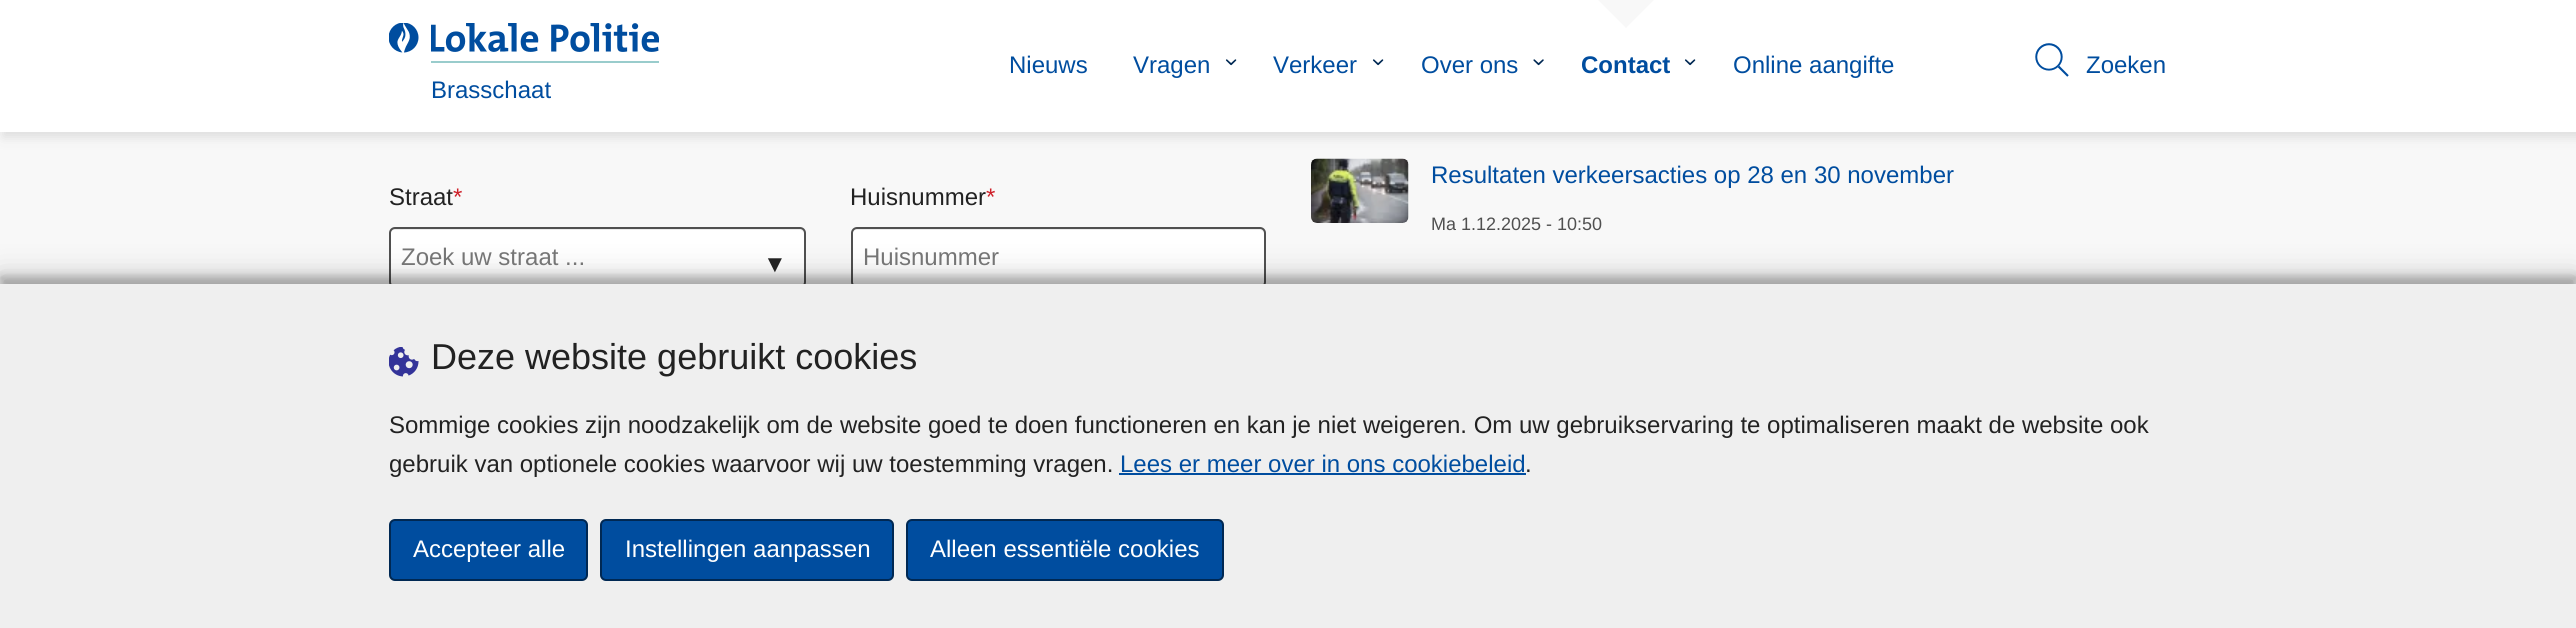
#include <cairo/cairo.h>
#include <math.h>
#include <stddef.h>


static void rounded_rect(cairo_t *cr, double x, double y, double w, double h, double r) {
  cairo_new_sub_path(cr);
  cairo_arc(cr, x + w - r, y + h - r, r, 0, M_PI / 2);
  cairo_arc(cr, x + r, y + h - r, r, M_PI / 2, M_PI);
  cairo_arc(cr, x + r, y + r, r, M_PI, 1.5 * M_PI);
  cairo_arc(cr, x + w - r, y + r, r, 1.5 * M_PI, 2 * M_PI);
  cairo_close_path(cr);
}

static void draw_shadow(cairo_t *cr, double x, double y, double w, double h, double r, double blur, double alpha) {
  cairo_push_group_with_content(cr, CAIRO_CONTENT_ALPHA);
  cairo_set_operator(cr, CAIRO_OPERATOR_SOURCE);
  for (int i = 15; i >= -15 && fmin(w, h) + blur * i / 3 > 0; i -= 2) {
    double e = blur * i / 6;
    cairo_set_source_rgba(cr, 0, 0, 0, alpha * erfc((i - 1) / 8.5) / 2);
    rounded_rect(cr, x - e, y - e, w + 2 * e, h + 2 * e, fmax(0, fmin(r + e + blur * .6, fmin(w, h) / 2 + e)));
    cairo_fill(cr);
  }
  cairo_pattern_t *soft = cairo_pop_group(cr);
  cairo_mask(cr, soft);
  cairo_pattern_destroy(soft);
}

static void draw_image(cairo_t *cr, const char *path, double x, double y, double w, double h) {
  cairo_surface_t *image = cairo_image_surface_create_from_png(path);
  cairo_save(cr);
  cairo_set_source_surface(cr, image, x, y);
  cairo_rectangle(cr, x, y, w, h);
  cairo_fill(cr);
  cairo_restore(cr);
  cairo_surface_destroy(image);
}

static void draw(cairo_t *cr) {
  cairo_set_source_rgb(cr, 248 / 255.0, 248 / 255.0, 248 / 255.0);
  cairo_paint(cr);
  cairo_set_source_rgb(cr, 220 / 255.0, 220 / 255.0, 220 / 255.0);
  draw_shadow(cr, 3, -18, 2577, 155, 0, 6, 1);
  cairo_set_source_rgb(cr, 1, 1, 1);
  cairo_rectangle(cr, 0, 0, 2576, 132);
  cairo_fill(cr);
  draw_image(cr, "images/1.png", 1225, 59, 12, 7);
  draw_image(cr, "images/1.png", 1372, 59, 12, 7);
  draw_image(cr, "images/2.png", 1533, 59, 11, 7);
  cairo_set_source_rgb(cr, 248 / 255.0, 248 / 255.0, 248 / 255.0);
  cairo_new_path(cr);
  cairo_move_to(cr, 1596, -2);
  cairo_line_to(cr, 1656, -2);
  cairo_line_to(cr, 1626, 28);
  cairo_close_path(cr);
  cairo_fill(cr);
  draw_image(cr, "images/1.png", 1684, 59, 12, 7);
  draw_image(cr, "images/3.png", 2035, 43, 34, 34);
  draw_image(cr, "images/4.png", 389, 23, 30, 30);
  draw_image(cr, "images/5.png", 431, 23, 228, 40);
  cairo_set_source_rgb(cr, 1, 1, 1);
  rounded_rect(cr, 389, 227, 417, 61, 6);
  cairo_fill(cr);
  cairo_set_source_rgb(cr, 236 / 255.0, 236 / 255.0, 236 / 255.0);
  cairo_new_path(cr);
  cairo_move_to(cr, 394, 230);
  cairo_line_to(cr, 800, 230);
  cairo_curve_to(cr, 802, 230, 804, 232, 804, 234);
  cairo_line_to(cr, 804, 233);
  cairo_curve_to(cr, 804, 230, 802, 228, 799, 228);
  cairo_line_to(cr, 395, 228);
  cairo_curve_to(cr, 392, 228, 390, 230, 390, 233);
  cairo_line_to(cr, 390, 234);
  cairo_curve_to(cr, 390, 232, 392, 230, 394, 230);
  cairo_close_path(cr);
  cairo_fill(cr);
  rounded_rect(cr, 390, 228, 415, 59, 5);
  cairo_set_source_rgb(cr, 80 / 255.0, 80 / 255.0, 80 / 255.0);
  cairo_stroke(cr);
  cairo_set_source_rgb(cr, 1, 1, 1);
  rounded_rect(cr, 851, 227, 415, 61, 6);
  cairo_fill(cr);
  cairo_set_source_rgb(cr, 236 / 255.0, 236 / 255.0, 236 / 255.0);
  cairo_new_path(cr);
  cairo_move_to(cr, 856, 230);
  cairo_line_to(cr, 1260, 230);
  cairo_curve_to(cr, 1262, 230, 1264, 232, 1264, 234);
  cairo_line_to(cr, 1264, 285);
  cairo_curve_to(cr, 1265, 284, 1265, 283, 1265, 282);
  cairo_line_to(cr, 1265, 233);
  cairo_curve_to(cr, 1265, 230, 1263, 228, 1260, 228);
  cairo_line_to(cr, 857, 228);
  cairo_curve_to(cr, 854, 228, 852, 230, 852, 233);
  cairo_line_to(cr, 852, 234);
  cairo_curve_to(cr, 852, 232, 854, 230, 856, 230);
  cairo_close_path(cr);
  cairo_fill(cr);
  rounded_rect(cr, 852, 228, 413, 59, 5);
  cairo_set_source_rgb(cr, 80 / 255.0, 80 / 255.0, 80 / 255.0);
  cairo_stroke(cr);
  draw_image(cr, "images/6.png", 1311, 158, 98, 65);
  cairo_set_source_rgb(cr, 0, 0, 0);
  draw_shadow(cr, 0, 276, 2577, 345, 0, 4.5, 0.23);
  draw_shadow(cr, 0, 276, 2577, 345, 0, 15, 0.19);
  cairo_set_source_rgb(cr, 239 / 255.0, 239 / 255.0, 239 / 255.0);
  cairo_rectangle(cr, 0, 284, 2576, 344);
  cairo_fill(cr);
  draw_image(cr, "images/7.png", 389, 347, 30, 30);
  cairo_set_source_rgb(cr, 0, 77 / 255.0, 159 / 255.0);
  cairo_rectangle(cr, 1119, 473, 407, 2);
  cairo_fill(cr);
  rounded_rect(cr, 390, 520, 197, 60, 5);
  cairo_fill_preserve(cr);
  cairo_set_source_rgb(cr, 0, 40 / 255.0, 83 / 255.0);
  cairo_stroke(cr);
  cairo_set_source_rgb(cr, 0, 77 / 255.0, 159 / 255.0);
  rounded_rect(cr, 601, 520, 292, 60, 5);
  cairo_fill_preserve(cr);
  cairo_set_source_rgb(cr, 0, 40 / 255.0, 83 / 255.0);
  cairo_stroke(cr);
  cairo_set_source_rgb(cr, 0, 77 / 255.0, 159 / 255.0);
  rounded_rect(cr, 907, 520, 316, 60, 5);
  cairo_fill_preserve(cr);
  cairo_set_source_rgb(cr, 0, 40 / 255.0, 83 / 255.0);
  cairo_stroke(cr);
  cairo_select_font_face(cr, "Liberation Sans", CAIRO_FONT_SLANT_NORMAL, CAIRO_FONT_WEIGHT_NORMAL);
  cairo_set_font_size(cr, 24);
  cairo_set_source_rgb(cr, 0, 77 / 255.0, 159 / 255.0);
  cairo_move_to(cr, 1009, 73);
  cairo_show_text(cr, "Nieuws");
  cairo_move_to(cr, 1133, 73);
  cairo_show_text(cr, "Vragen");
  cairo_move_to(cr, 1273, 73);
  cairo_show_text(cr, "Verkeer");
  cairo_move_to(cr, 1421, 73);
  cairo_show_text(cr, "Over ons");
  cairo_select_font_face(cr, "Liberation Sans", CAIRO_FONT_SLANT_NORMAL, CAIRO_FONT_WEIGHT_BOLD);
  cairo_move_to(cr, 1581, 73);
  cairo_show_text(cr, "Contact");
  cairo_select_font_face(cr, "Liberation Sans", CAIRO_FONT_SLANT_NORMAL, CAIRO_FONT_WEIGHT_NORMAL);
  cairo_move_to(cr, 1733, 73);
  cairo_show_text(cr, "Online aangifte");
  cairo_move_to(cr, 2086, 73);
  cairo_show_text(cr, "Zoeken");
  cairo_move_to(cr, 431, 98);
  cairo_show_text(cr, "Brasschaat");
  cairo_set_source_rgb(cr, 34 / 255.0, 34 / 255.0, 34 / 255.0);
  cairo_move_to(cr, 389, 205);
  cairo_show_text(cr, "Straat");
  cairo_set_source_rgb(cr, 206 / 255.0, 32 / 255.0, 41 / 255.0);
  cairo_move_to(cr, 453, 205);
  cairo_show_text(cr, "*");
  cairo_set_source_rgb(cr, 117 / 255.0, 117 / 255.0, 117 / 255.0);
  cairo_move_to(cr, 401, 265);
  cairo_show_text(cr, "Zoek uw straat ...");
  cairo_set_source_rgb(cr, 34 / 255.0, 34 / 255.0, 34 / 255.0);
  cairo_move_to(cr, 763, 272);
  cairo_show_text(cr, "▼");
  cairo_move_to(cr, 850, 205);
  cairo_show_text(cr, "Huisnummer");
  cairo_set_source_rgb(cr, 206 / 255.0, 32 / 255.0, 41 / 255.0);
  cairo_move_to(cr, 986, 205);
  cairo_show_text(cr, "*");
  cairo_set_source_rgb(cr, 117 / 255.0, 117 / 255.0, 117 / 255.0);
  cairo_move_to(cr, 863, 265);
  cairo_show_text(cr, "Huisnummer");
  cairo_set_source_rgb(cr, 0, 77 / 255.0, 159 / 255.0);
  cairo_move_to(cr, 1431, 183);
  cairo_show_text(cr, "Resultaten verkeersacties op 28 en 30 november");
  cairo_set_font_size(cr, 18);
  cairo_set_source_rgb(cr, 80 / 255.0, 80 / 255.0, 80 / 255.0);
  cairo_move_to(cr, 1431, 230);
  cairo_show_text(cr, "Ma 1.12.2025 - 10:50");
  cairo_set_font_size(cr, 36);
  cairo_set_source_rgb(cr, 34 / 255.0, 34 / 255.0, 34 / 255.0);
  cairo_move_to(cr, 431, 369);
  cairo_show_text(cr, "Deze website gebruikt cookies");
  cairo_set_font_size(cr, 24);
  cairo_move_to(cr, 389, 433);
  cairo_show_text(cr, "Sommige cookies zijn noodzakelijk om de website goed te doen functioneren en kan je niet weigeren. Om uw gebruikservaring te optimaliseren maakt de website ook");
  cairo_move_to(cr, 389, 472);
  cairo_show_text(cr, "gebruik van optionele cookies waarvoor wij uw toestemming vragen.");
  cairo_set_source_rgb(cr, 0, 77 / 255.0, 159 / 255.0);
  cairo_move_to(cr, 1120, 472);
  cairo_show_text(cr, "Lees er meer over in ons cookiebeleid");
  cairo_set_source_rgb(cr, 34 / 255.0, 34 / 255.0, 34 / 255.0);
  cairo_move_to(cr, 1525, 472);
  cairo_show_text(cr, ".");
  cairo_set_source_rgb(cr, 1, 1, 1);
  cairo_move_to(cr, 413, 557);
  cairo_show_text(cr, "Accepteer alle");
  cairo_move_to(cr, 625, 557);
  cairo_show_text(cr, "Instellingen aanpassen");
  cairo_move_to(cr, 930, 557);
  cairo_show_text(cr, "Alleen essentiële cookies");
}

int main(void) {
  cairo_surface_t *surface = cairo_image_surface_create(CAIRO_FORMAT_RGB24, 2576, 628);
  cairo_t *cr = cairo_create(surface);
  cairo_font_options_t *options = cairo_font_options_create();
  cairo_font_options_set_hint_metrics(options, CAIRO_HINT_METRICS_OFF);
  cairo_font_options_set_hint_style(options, CAIRO_HINT_STYLE_NONE);
  cairo_set_font_options(cr, options);
  cairo_set_miter_limit(cr, 4);
  draw(cr);
  cairo_surface_write_to_png(surface, "out.png");
  cairo_font_options_destroy(options);
  cairo_destroy(cr);
  cairo_surface_destroy(surface);
  return 0;
}
